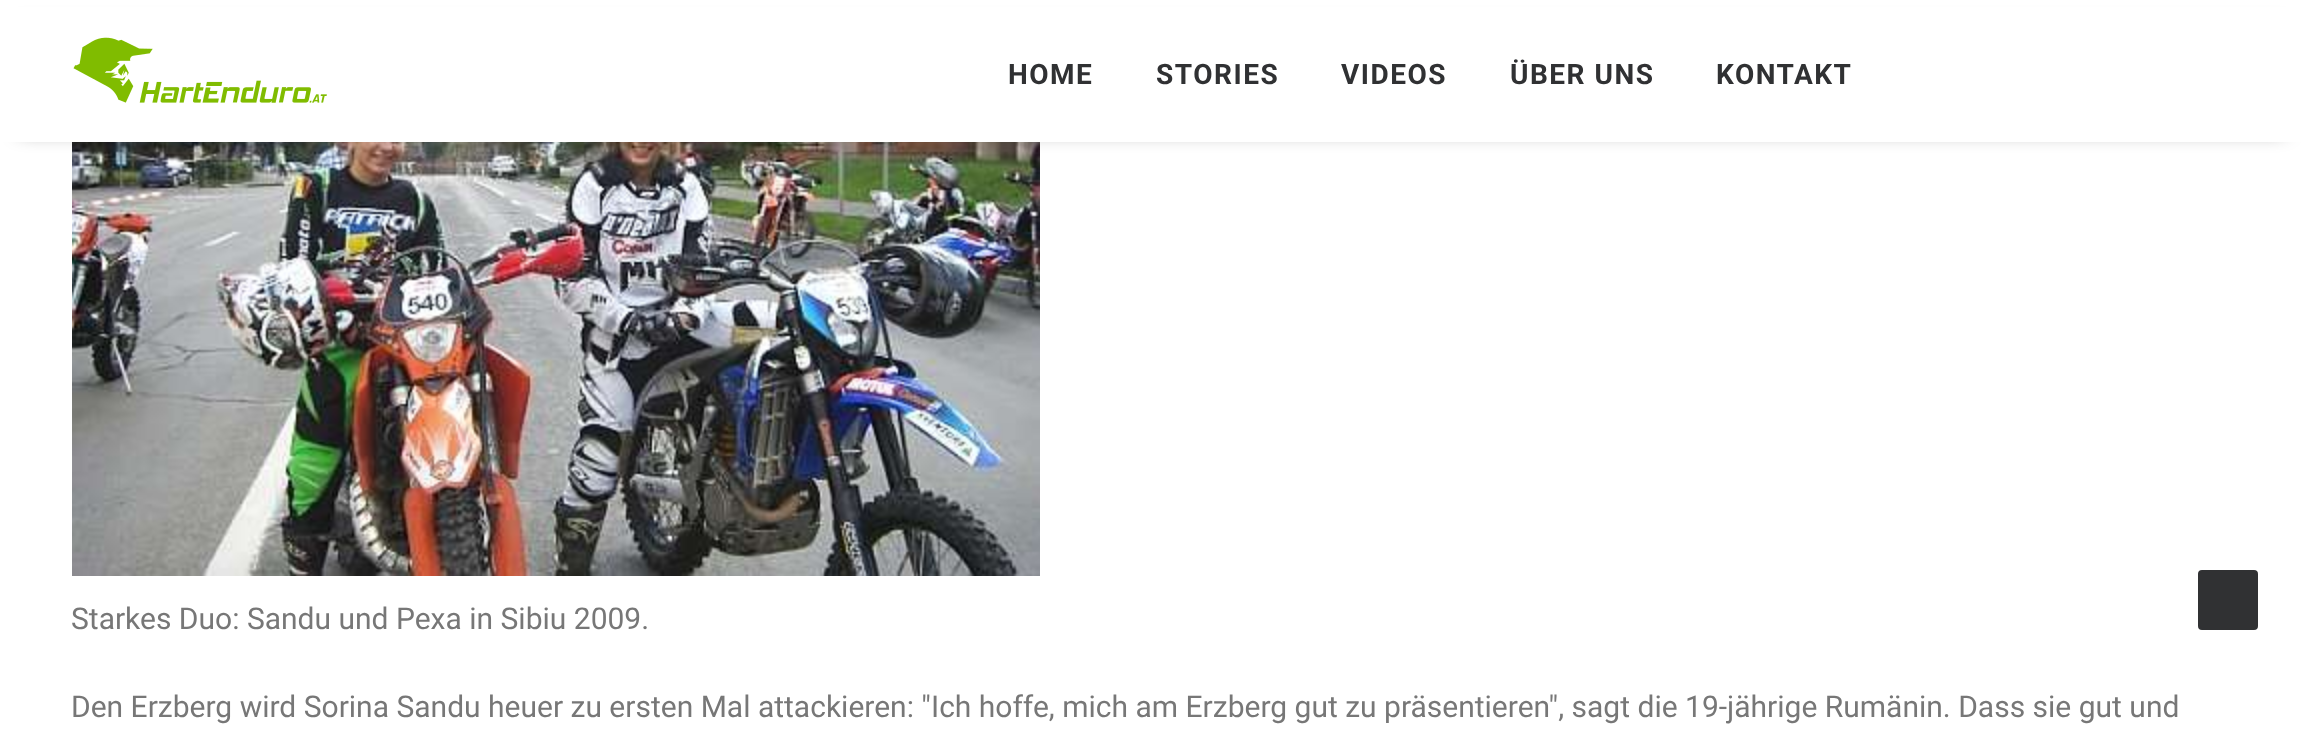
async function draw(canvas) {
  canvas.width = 2301
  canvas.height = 752
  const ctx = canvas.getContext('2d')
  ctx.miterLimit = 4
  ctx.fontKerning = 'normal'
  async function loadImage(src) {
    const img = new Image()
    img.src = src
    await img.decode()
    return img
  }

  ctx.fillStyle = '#fff'
  ctx.fillRect(0, 0, 2301, 752)
  ctx.drawImage(await loadImage('image1.png'), 72, 142, 968, 434)
  ctx.fillStyle = '#00000099'
  ctx.filter = 'blur(10px)'
  ctx.beginPath()
  ctx.rect(20, 28, 2264, 102)
  ctx.fill()
  ctx.filter = 'none'
  ctx.fillStyle = '#fff'
  ctx.fillRect(0, 7, 2301, 135)
  ctx.drawImage(await loadImage('image0.png'), 73, 37, 254, 66)
  ctx.letterSpacing = '1.5px'
  ctx.font = 'bold 28px Roboto'
  ctx.fillStyle = '#303133'
  ctx.fillText('HOME', 1008, 84)
  ctx.fillText('STORIES', 1156, 84)
  ctx.fillText('VIDEOS', 1341, 84)
  ctx.fillText('ÜBER UNS', 1510, 84)
  ctx.fillText('KONTAKT', 1716, 84)
  ctx.letterSpacing = '0px'
  ctx.font = '30px Roboto'
  ctx.fillStyle = '#777'
  ctx.fillText('Starkes Duo: Sandu und Pexa in Sibiu 2009.', 71, 629)
  ctx.fillText('Den Erzberg wird Sorina Sandu heuer zu ersten Mal attackieren: "Ich hoffe, mich am Erzberg gut zu präsentieren", sagt die 19-jährige Rumänin. Dass sie gut und', 71, 717)
  ctx.fillStyle = '#303133'
  ctx.beginPath()
  ctx.roundRect(2199, 571, 58, 58, 3)
  ctx.fill()
  ctx.strokeStyle = '#303133'
  ctx.lineWidth = 2
  ctx.stroke()
}

draw(document.querySelector('canvas'))
